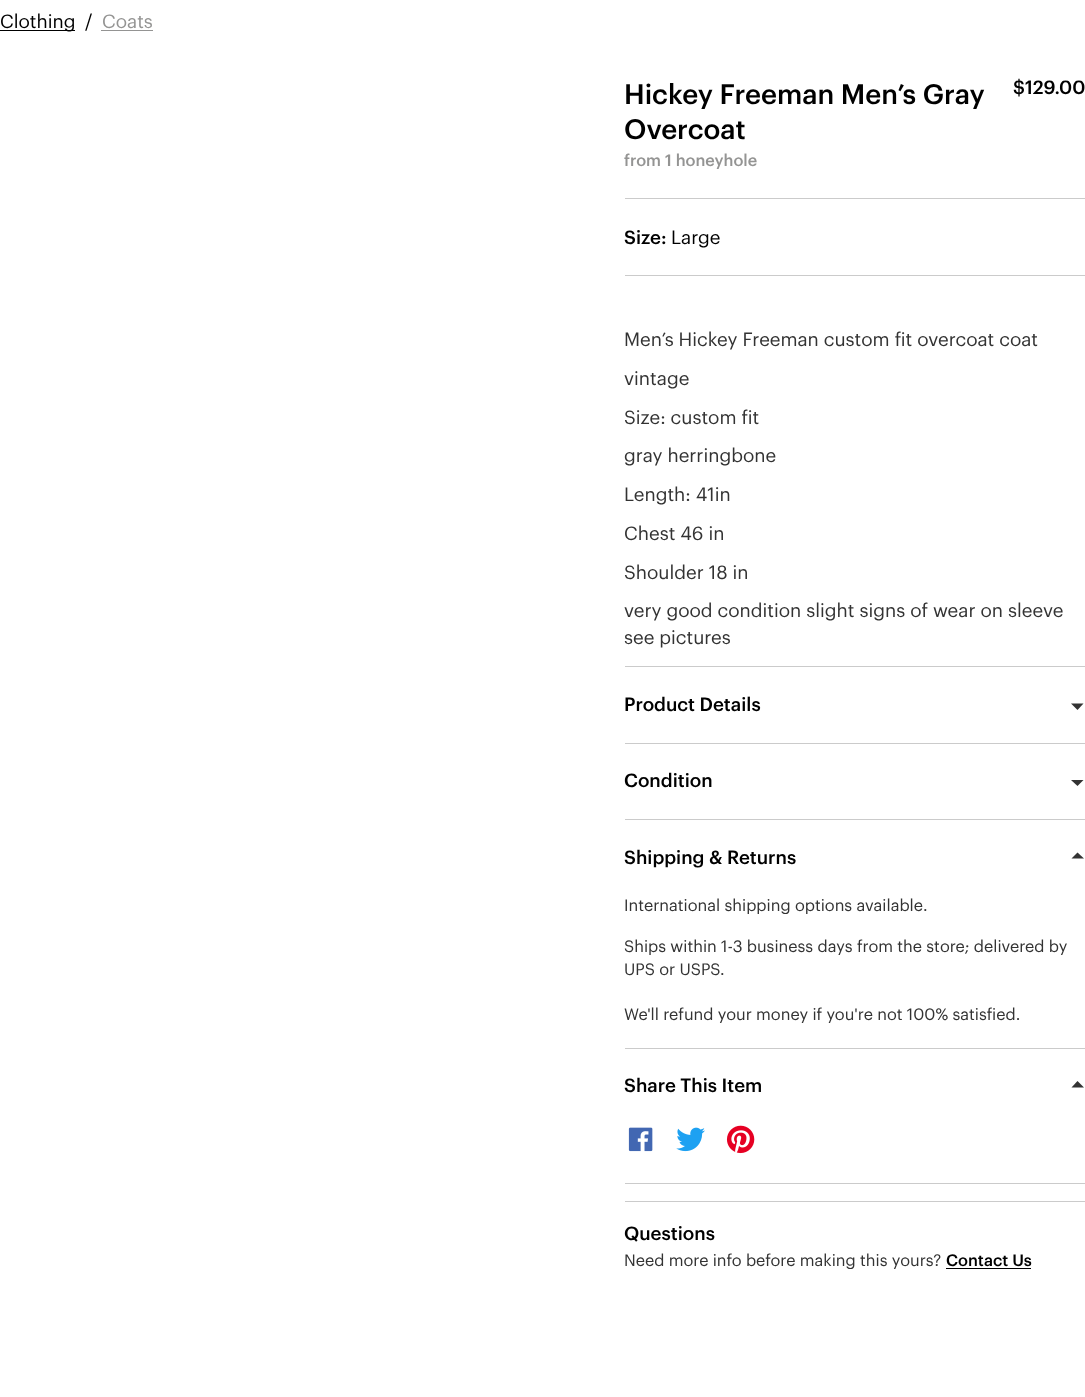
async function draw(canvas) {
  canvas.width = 1085
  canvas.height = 1397
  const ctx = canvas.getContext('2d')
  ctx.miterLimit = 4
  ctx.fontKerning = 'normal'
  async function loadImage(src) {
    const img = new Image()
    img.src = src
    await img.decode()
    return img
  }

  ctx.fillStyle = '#fff'
  ctx.fillRect(0, 0, 1085, 1397)
  ctx.fillStyle = '#000'
  ctx.fillRect(0, 30, 75, 1)
  ctx.font = '18.75px Graphik'
  ctx.fillText('Clothing', 0, 28)
  ctx.fillText('/', 85, 28)
  ctx.fillStyle = '#949493'
  ctx.fillText('Coats', 102, 28)
  ctx.fillRect(101, 30, 52, 1)
  ctx.font = '500 27.5px Graphik'
  ctx.fillStyle = '#000'
  ctx.fillText('Hickey Freeman Men’s Gray', 624, 104)
  ctx.fillText('Overcoat', 624, 139)
  ctx.font = '500 18.75px Graphik'
  ctx.fillText('$129.00', 1013, 94)
  ctx.font = '500 16.25px Graphik'
  ctx.fillStyle = '#949493'
  ctx.fillText('from 1 honeyhole', 624, 166)
  ctx.fillStyle = '#cbcbcb'
  ctx.fillRect(625, 198, 460, 1)
  ctx.fillRect(625, 275, 460, 1)
  ctx.font = '500 18.75px Graphik'
  ctx.fillStyle = '#000'
  ctx.fillText('Size:', 624, 244)
  ctx.font = '18.75px Graphik'
  ctx.fillText('Large', 671, 244)
  ctx.fillStyle = '#333'
  ctx.fillText('Men’s Hickey Freeman custom fit overcoat coat', 624, 346)
  ctx.fillText('vintage', 624, 385)
  ctx.fillText('Size: custom fit', 624, 424)
  ctx.fillText('gray herringbone', 624, 462)
  ctx.fillText('Length: 41in', 624, 501)
  ctx.fillText('Chest 46 in', 624, 540)
  ctx.fillText('Shoulder 18 in', 624, 579)
  ctx.fillText('very good condition slight signs of wear on sleeve', 624, 617)
  ctx.fillText('see pictures', 624, 644)
  ctx.fillStyle = '#cbcbcb'
  ctx.fillRect(625, 666, 460, 1)
  ctx.font = '500 18.75px Graphik'
  ctx.fillStyle = '#000'
  ctx.fillText('Product Details', 624, 711)
  ctx.fillStyle = '#333'
  ctx.beginPath()
  ctx.moveTo(1083.5, 703.5)
  ctx.lineTo(1077.5, 710)
  ctx.lineTo(1071, 703.5)
  ctx.closePath()
  ctx.fill('evenodd')
  ctx.fillStyle = '#cbcbcb'
  ctx.fillRect(625, 743, 460, 1)
  ctx.fillStyle = '#000'
  ctx.fillText('Condition', 624, 787)
  ctx.fillStyle = '#333'
  ctx.beginPath()
  ctx.moveTo(1083.5, 780)
  ctx.lineTo(1077.5, 786)
  ctx.lineTo(1071, 780)
  ctx.closePath()
  ctx.fill('evenodd')
  ctx.fillStyle = '#cbcbcb'
  ctx.fillRect(625, 819, 460, 1)
  ctx.fillStyle = '#000'
  ctx.fillText('Shipping & Returns', 624, 864)
  ctx.fillStyle = '#333'
  ctx.beginPath()
  ctx.moveTo(1071.5, 858.5)
  ctx.lineTo(1077.5, 852.5)
  ctx.lineTo(1084, 858.5)
  ctx.closePath()
  ctx.fill('evenodd')
  ctx.font = '16.25px Graphik'
  ctx.fillText('International shipping options available.', 624, 911)
  ctx.fillText('Ships within 1-3 business days from the store; delivered by', 624, 952)
  ctx.fillText('UPS or USPS.', 624, 975)
  ctx.fillText('We\'ll refund your money if you\'re not 100% satisfied.', 624, 1020)
  ctx.fillStyle = '#cbcbcb'
  ctx.fillRect(625, 1048, 460, 1)
  ctx.font = '500 18.75px Graphik'
  ctx.fillStyle = '#000'
  ctx.fillText('Share This Item', 624, 1092)
  ctx.fillStyle = '#333'
  ctx.beginPath()
  ctx.moveTo(1071.5, 1087.5)
  ctx.lineTo(1077.5, 1081)
  ctx.lineTo(1084, 1087.5)
  ctx.closePath()
  ctx.fill('evenodd')
  ctx.drawImage(await loadImage('image0.png'), 628, 1127, 25, 25)
  ctx.drawImage(await loadImage('image1.png'), 676, 1127, 29, 25)
  ctx.drawImage(await loadImage('image2.png'), 726, 1125, 29, 29)
  ctx.fillStyle = '#cbcbcb'
  ctx.fillRect(625, 1183, 460, 1)
  ctx.fillRect(625, 1201, 460, 1)
  ctx.fillStyle = '#000'
  ctx.fillText('Questions', 624, 1240)
  ctx.font = '16.25px Graphik'
  ctx.fillStyle = '#333'
  ctx.fillText('Need more info before making this yours?', 624, 1266)
  ctx.font = '500 16.25px Graphik'
  ctx.fillStyle = '#000'
  ctx.fillText('Contact Us', 946, 1266)
  ctx.fillRect(946, 1268, 85, 1)
}

draw(document.querySelector('canvas'))
